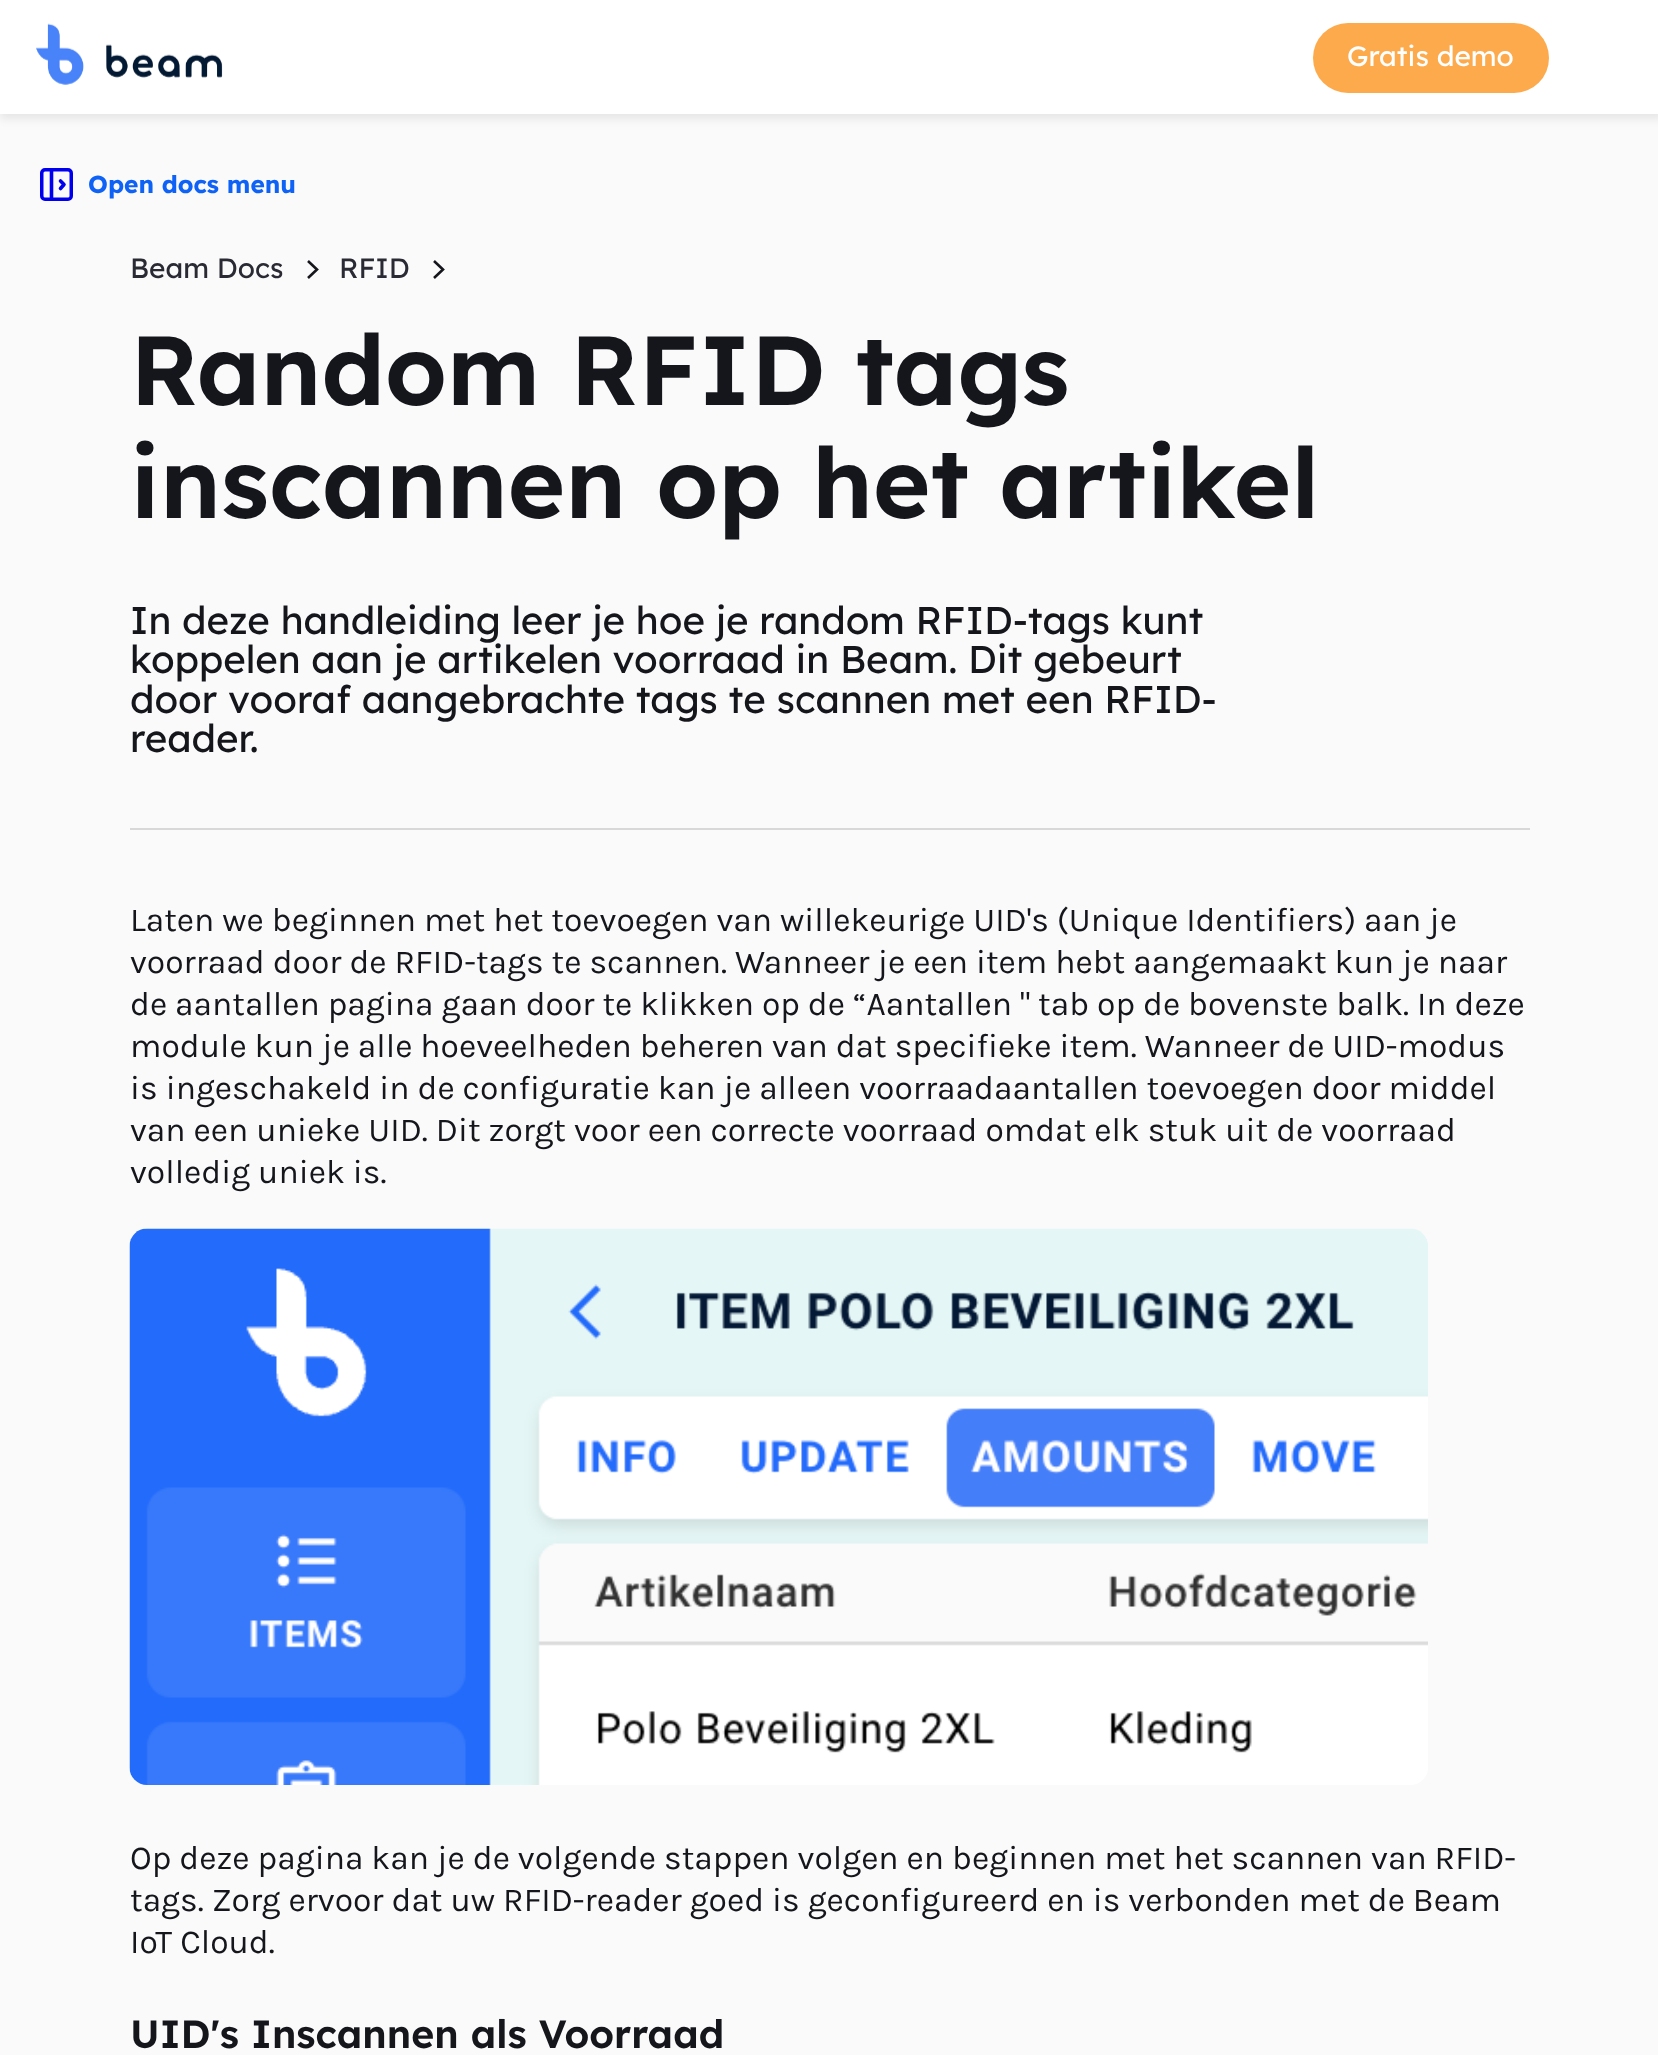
async function draw(canvas) {
  canvas.width = 1658
  canvas.height = 2055
  const ctx = canvas.getContext('2d')
  ctx.miterLimit = 4
  ctx.fontKerning = 'normal'
  async function loadImage(src) {
    const img = new Image()
    img.src = src
    await img.decode()
    return img
  }

  ctx.fillStyle = '#fafafa'
  ctx.fillRect(0, 0, 1658, 2055)
  ctx.fillStyle = '#00000014'
  ctx.filter = 'blur(4.5px)'
  ctx.beginPath()
  ctx.rect(0, 2, 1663, 117)
  ctx.fill()
  ctx.filter = 'none'
  ctx.fillStyle = '#fff'
  ctx.fillRect(0, 0, 1658, 114)
  ctx.drawImage(await loadImage('image0.png'), 36, 23, 187, 62)
  ctx.fillStyle = '#fdaa4c'
  ctx.beginPath()
  ctx.roundRect(1313, 23, 236, 70, 35)
  ctx.fill()
  ctx.font = '28px Lexend Deca'
  ctx.fillStyle = '#fff'
  ctx.fillText('Gratis demo', 1347, 66)
  ctx.beginPath()
  ctx.roundRect(41.75, 169.75, 29.5, 29.5, 3.25)
  ctx.strokeStyle = '#00e'
  ctx.lineWidth = 3.5
  ctx.stroke()
  ctx.beginPath()
  ctx.moveTo(51.5, 170)
  ctx.lineTo(51.5, 199)
  ctx.moveTo(60.5, 181)
  ctx.lineTo(64, 184.5)
  ctx.lineTo(60.5, 188.5)
  ctx.lineWidth = 3.6
  ctx.lineCap = 'round'
  ctx.lineJoin = 'round'
  ctx.stroke()
  ctx.font = 'bold 24.5px Lexend Deca'
  ctx.fillStyle = '#0f62f6'
  ctx.fillText('Open docs menu', 88, 193)
  ctx.fillStyle = '#d8d8d8'
  ctx.fillRect(130, 828, 1400, 2)
  ctx.font = '28px Lexend Deca'
  ctx.fillStyle = '#292a33'
  ctx.fillText('Beam Docs', 130, 278)
  ctx.beginPath()
  ctx.moveTo(308, 261)
  ctx.lineTo(317, 269.5)
  ctx.lineTo(308, 278)
  ctx.strokeStyle = '#15161b'
  ctx.lineWidth = 2.6
  ctx.lineCap = 'butt'
  ctx.lineJoin = 'miter'
  ctx.stroke()
  ctx.fillText('RFID', 339, 278)
  ctx.beginPath()
  ctx.moveTo(434, 261)
  ctx.lineTo(443, 269.5)
  ctx.lineTo(434, 278)
  ctx.stroke()
  ctx.font = '600 98px Lexend Deca'
  ctx.fillStyle = '#15161b'
  ctx.fillText('Random RFID tags', 130, 405)
  ctx.fillText('inscannen op het artikel', 130, 518)
  ctx.font = '38.5px Lexend Deca'
  ctx.fillText('In deze handleiding leer je hoe je random RFID-tags kunt', 130, 634)
  ctx.fillText('koppelen aan je artikelen voorraad in Beam. Dit gebeurt', 130, 673)
  ctx.fillText('door vooraf aangebrachte tags te scannen met een RFID-', 130, 713)
  ctx.fillText('reader.', 130, 752)
  ctx.font = '33.6px Karla'
  ctx.fillText('Laten we beginnen met het toevoegen van willekeurige UID\'s (Unique Identifiers) aan je', 130, 931)
  ctx.fillText('voorraad door de RFID-tags te scannen. Wanneer je een item hebt aangemaakt kun je naar', 130, 973)
  ctx.fillText('de aantallen pagina gaan door te klikken op de “Aantallen " tab op de bovenste balk. In deze', 130, 1015)
  ctx.fillText('module kun je alle hoeveelheden beheren van dat specifieke item. Wanneer de UID-modus', 130, 1057)
  ctx.fillText('is ingeschakeld in de configuratie kan je alleen voorraadaantallen toevoegen door middel', 130, 1099)
  ctx.fillText('van een unieke UID. Dit zorgt voor een correcte voorraad omdat elk stuk uit de voorraad', 130, 1141)
  ctx.fillText('volledig uniek is.', 130, 1183)
  ctx.drawImage(await loadImage('image1.png'), 129, 1228, 1299, 557)
  ctx.fillText('Op deze pagina kan je de volgende stappen volgen en beginnen met het scannen van RFID-', 130, 1869)
  ctx.fillText('tags. Zorg ervoor dat uw RFID-reader goed is geconfigureerd en is verbonden met de Beam', 130, 1911)
  ctx.fillText('IoT Cloud.', 130, 1953)
  ctx.font = '600 39.25px Lexend Deca'
  ctx.fillText('UID\'s Inscannen als Voorraad', 130, 2048)
}

draw(document.querySelector('canvas'))
